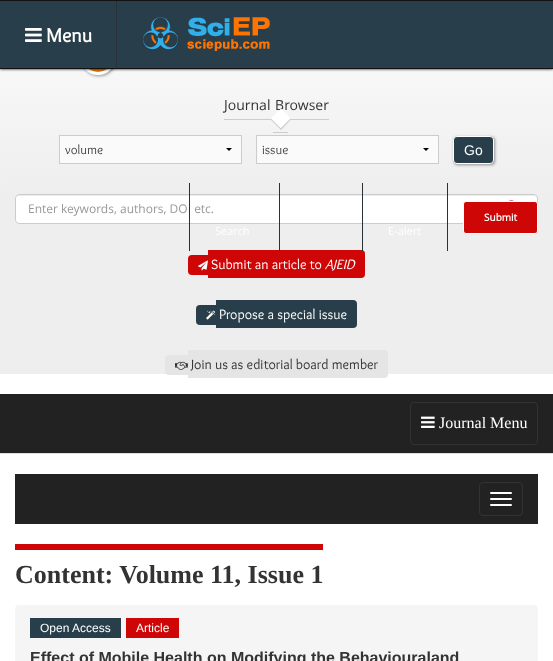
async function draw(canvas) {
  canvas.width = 553
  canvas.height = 661
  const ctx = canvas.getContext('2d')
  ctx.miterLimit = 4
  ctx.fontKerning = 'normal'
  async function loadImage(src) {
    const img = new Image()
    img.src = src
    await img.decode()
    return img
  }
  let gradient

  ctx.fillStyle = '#fff'
  ctx.fillRect(0, 0, 553, 661)
  gradient = ctx.createLinearGradient(276, -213, 277, 374)
  gradient.addColorStop(0, '#fff')
  gradient.addColorStop(0.3, '#fff')
  gradient.addColorStop(0.7, '#eee')
  gradient.addColorStop(1, '#eee')
  ctx.fillStyle = gradient
  ctx.fillRect(0, 69, 553, 305)
  ctx.fillStyle = '#00000066'
  ctx.filter = 'blur(1.5px)'
  ctx.beginPath()
  ctx.roundRect(81, 40, 36, 36, 18)
  ctx.fill()
  ctx.filter = 'none'
  ctx.fillStyle = '#ed7b00'
  ctx.beginPath()
  ctx.arc(98, 57, 16.5, 0, 2 * Math.PI)
  ctx.fill()
  ctx.strokeStyle = '#fff'
  ctx.lineWidth = 3
  ctx.stroke()
  ctx.fillStyle = '#000'
  ctx.filter = 'blur(1.5px)'
  ctx.beginPath()
  ctx.rect(0, 1, 553, 68)
  ctx.fill()
  ctx.filter = 'none'
  ctx.fillStyle = '#283e4a'
  ctx.fillRect(0, 1, 553, 67)
  ctx.fillStyle = '#273137'
  ctx.fillRect(116, 0, 1, 67)
  ctx.fillStyle = '#121212'
  ctx.fillRect(0, 0, 553, 1)
  ctx.drawImage(await loadImage('image0.png'), 25, 28, 17, 14)
  ctx.font = 'bold 20px Overlock'
  ctx.fillStyle = '#fff'
  ctx.fillText('Menu', 46, 42)
  ctx.drawImage(await loadImage('image1.png'), 143, 17, 127, 34)
  ctx.fillStyle = '#121212'
  ctx.fillRect(0, 68, 553, 1)
  ctx.fillStyle = '#fff'
  ctx.beginPath()
  ctx.roundRect(15, 194, 523, 30, 4)
  ctx.fill()
  ctx.fillStyle = '#ececec'
  ctx.beginPath()
  ctx.moveTo(19, 196)
  ctx.bezierCurveTo(17, 196, 16, 197, 16, 199)
  ctx.bezierCurveTo(16, 197, 17, 195, 19, 195)
  ctx.lineTo(535, 195)
  ctx.lineTo(537, 197)
  ctx.lineTo(537, 199)
  ctx.bezierCurveTo(537, 197, 536, 196, 534, 196)
  ctx.closePath()
  ctx.fill()
  ctx.beginPath()
  ctx.roundRect(15.5, 194.5, 522, 29, 3.5)
  ctx.strokeStyle = '#ccc'
  ctx.lineWidth = 1
  ctx.stroke()
  ctx.fillStyle = '#cf0606'
  ctx.beginPath()
  ctx.roundRect(463.5, 201.5, 74, 32, 2.5)
  ctx.fill()
  ctx.strokeStyle = '#fff'
  ctx.stroke()
  ctx.font = 'bold 10px Open Sans'
  ctx.fillStyle = '#fff'
  ctx.fillText('Submit', 484, 221)
  ctx.font = '12px Open Sans'
  ctx.fillStyle = '#999'
  ctx.fillText('Enter keywords, authors, DOI etc.', 28, 213)
  ctx.fillStyle = '#273137'
  ctx.fillRect(189, 183, 1, 68)
  ctx.font = '11px Open Sans'
  ctx.fillStyle = '#fff'
  ctx.fillText('Search', 215, 235)
  ctx.fillStyle = '#cf0606'
  ctx.fillRect(208, 250, 117, 28)
  ctx.fillStyle = '#273137'
  ctx.fillRect(279, 183, 1, 68)
  ctx.fillRect(447, 183, 1, 68)
  ctx.fillStyle = '#cf0606'
  ctx.beginPath()
  ctx.roundRect(325, 250, 40, 28, [0, 4, 4, 0])
  ctx.fill()
  ctx.fillStyle = '#273137'
  ctx.fillRect(362, 183, 1, 68)
  ctx.fillStyle = '#fff'
  ctx.fillText('E-alert', 388, 235)
  ctx.fillStyle = '#ccc'
  ctx.fillRect(224, 119, 105, 1)
  ctx.fillRect(273, 132, 15, 1)
  ctx.wordSpacing = '1px'
  ctx.font = '14px Open Sans'
  ctx.fillStyle = '#333'
  ctx.fillText('Journal Browser', 224, 110)
  ctx.fillStyle = '#fff'
  ctx.beginPath()
  ctx.moveTo(281, 108.5)
  ctx.lineTo(291.5, 119)
  ctx.lineTo(281, 130)
  ctx.lineTo(270, 119)
  ctx.closePath()
  ctx.fill()
  ctx.fillStyle = '#ccc'
  ctx.beginPath()
  ctx.moveTo(290.5, 118.5)
  ctx.lineTo(291.5, 119)
  ctx.lineTo(281, 130)
  ctx.lineTo(280, 129)
  ctx.closePath()
  ctx.fill()
  ctx.beginPath()
  ctx.moveTo(271, 118.5)
  ctx.lineTo(281.5, 129)
  ctx.lineTo(281, 130)
  ctx.lineTo(270, 119)
  ctx.closePath()
  ctx.fill()
  ctx.fillStyle = '#fafafa'
  ctx.fillRect(60, 136, 181, 27)
  ctx.fillStyle = '#000'
  ctx.beginPath()
  ctx.moveTo(232, 148)
  ctx.lineTo(229, 151)
  ctx.lineTo(226, 148)
  ctx.closePath()
  ctx.fill()
  ctx.strokeStyle = '#ccc'
  ctx.strokeRect(59.5, 135.5, 182, 28)
  ctx.wordSpacing = '0px'
  ctx.font = '13px Overlock'
  ctx.fillStyle = '#3f3f3f'
  ctx.fillText('volume', 65, 154)
  ctx.fillStyle = '#fafafa'
  ctx.fillRect(257, 136, 181, 27)
  ctx.fillStyle = '#000'
  ctx.beginPath()
  ctx.moveTo(429, 148)
  ctx.lineTo(426, 151)
  ctx.lineTo(423, 148)
  ctx.closePath()
  ctx.fill()
  ctx.strokeRect(256.5, 135.5, 182, 28)
  ctx.fillStyle = '#3f3f3f'
  ctx.fillText('issue', 262, 154)
  ctx.fillStyle = '#00000066'
  ctx.filter = 'blur(1.5px)'
  ctx.beginPath()
  ctx.roundRect(454, 137, 41, 28, 4)
  ctx.fill()
  ctx.filter = 'none'
  ctx.fillStyle = '#283e4a'
  ctx.beginPath()
  ctx.roundRect(453.5, 136.5, 40, 27, 3.5)
  ctx.fill()
  ctx.strokeStyle = '#fff'
  ctx.stroke()
  ctx.font = '14px Liberation Sans'
  ctx.fillStyle = '#fff'
  ctx.fillText('Go', 464, 155)
  ctx.drawImage(await loadImage('image2.png'), 509, 200, 5, 1)
  ctx.fillStyle = '#cf0606'
  ctx.beginPath()
  ctx.roundRect(188, 255, 20, 20, [4, 0, 0, 4])
  ctx.fill()
  ctx.drawImage(await loadImage('image3.png'), 198, 260, 10, 11)
  ctx.font = '14px Overlock'
  ctx.fillStyle = '#fff'
  ctx.fillText('Submit an article to', 211, 269)
  ctx.font = 'italic 14px Overlock'
  ctx.fillText('AJEID', 325, 269)
  ctx.fillStyle = '#283e4a'
  ctx.beginPath()
  ctx.roundRect(196, 305, 20, 20, [4, 0, 0, 4])
  ctx.fill()
  ctx.beginPath()
  ctx.roundRect(216, 300, 141, 28, [0, 4, 4, 0])
  ctx.fill()
  ctx.drawImage(await loadImage('image4.png'), 206, 310, 10, 10)
  ctx.font = '14px Overlock'
  ctx.fillStyle = '#fff'
  ctx.fillText('Propose a special issue', 219, 319)
  ctx.fillStyle = '#e5e5e5'
  ctx.beginPath()
  ctx.roundRect(165, 355, 23, 20, [4, 0, 0, 4])
  ctx.fill()
  ctx.beginPath()
  ctx.roundRect(188, 350, 200, 28, [0, 4, 4, 0])
  ctx.fill()
  ctx.drawImage(await loadImage('image5.png'), 175, 361, 13, 9)
  ctx.fillStyle = '#333'
  ctx.fillText('Join us as editorial board member', 191, 369)
  ctx.fillStyle = '#ddd'
  ctx.fillRect(0, 453, 553, 1)
  ctx.fillStyle = '#222'
  ctx.fillRect(0, 394, 553, 59)
  ctx.beginPath()
  ctx.roundRect(410.5, 402.5, 127, 42, 3.5)
  ctx.strokeStyle = '#333'
  ctx.stroke()
  ctx.drawImage(await loadImage('image6.png'), 421, 416, 14, 12)
  ctx.font = '16px Liberation Serif'
  ctx.fillStyle = '#fff'
  ctx.fillText('Journal Menu', 439, 428)
  ctx.fillStyle = '#222'
  ctx.fillRect(15, 474, 523, 50)
  ctx.beginPath()
  ctx.roundRect(479.5, 482.5, 43, 33, 3.5)
  ctx.stroke()
  ctx.fillStyle = '#fff'
  ctx.beginPath()
  ctx.roundRect(490, 492, 22, 2, 1)
  ctx.fill()
  ctx.beginPath()
  ctx.roundRect(490, 498, 22, 2, 1)
  ctx.fill()
  ctx.beginPath()
  ctx.roundRect(490, 504, 22, 2, 1)
  ctx.fill()
  ctx.font = 'bold 26px Liberation Serif'
  ctx.fillStyle = '#333'
  ctx.fillText('Content: Volume 11, Issue 1', 15, 583)
  ctx.fillStyle = '#cf0606'
  ctx.fillRect(15, 544, 308, 6)
  ctx.fillStyle = '#f5f5f5'
  ctx.beginPath()
  ctx.roundRect(15, 605, 523, 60, 4)
  ctx.fill()
  ctx.fillStyle = '#283e4a'
  ctx.fillRect(30, 618, 91, 20)
  ctx.font = '12px Liberation Sans'
  ctx.fillStyle = '#fff'
  ctx.fillText('Open Access', 40, 632)
  ctx.fillStyle = '#cf0606'
  ctx.fillRect(126, 618, 53, 20)
  ctx.fillStyle = '#fff'
  ctx.fillText('Article', 136, 632)
  ctx.font = 'bold 16px Liberation Sans'
  ctx.fillStyle = '#333'
  ctx.fillText('Effect of Mobile Health on Modifying the Behaviouraland', 30, 663)
}

draw(document.querySelector('canvas'))
